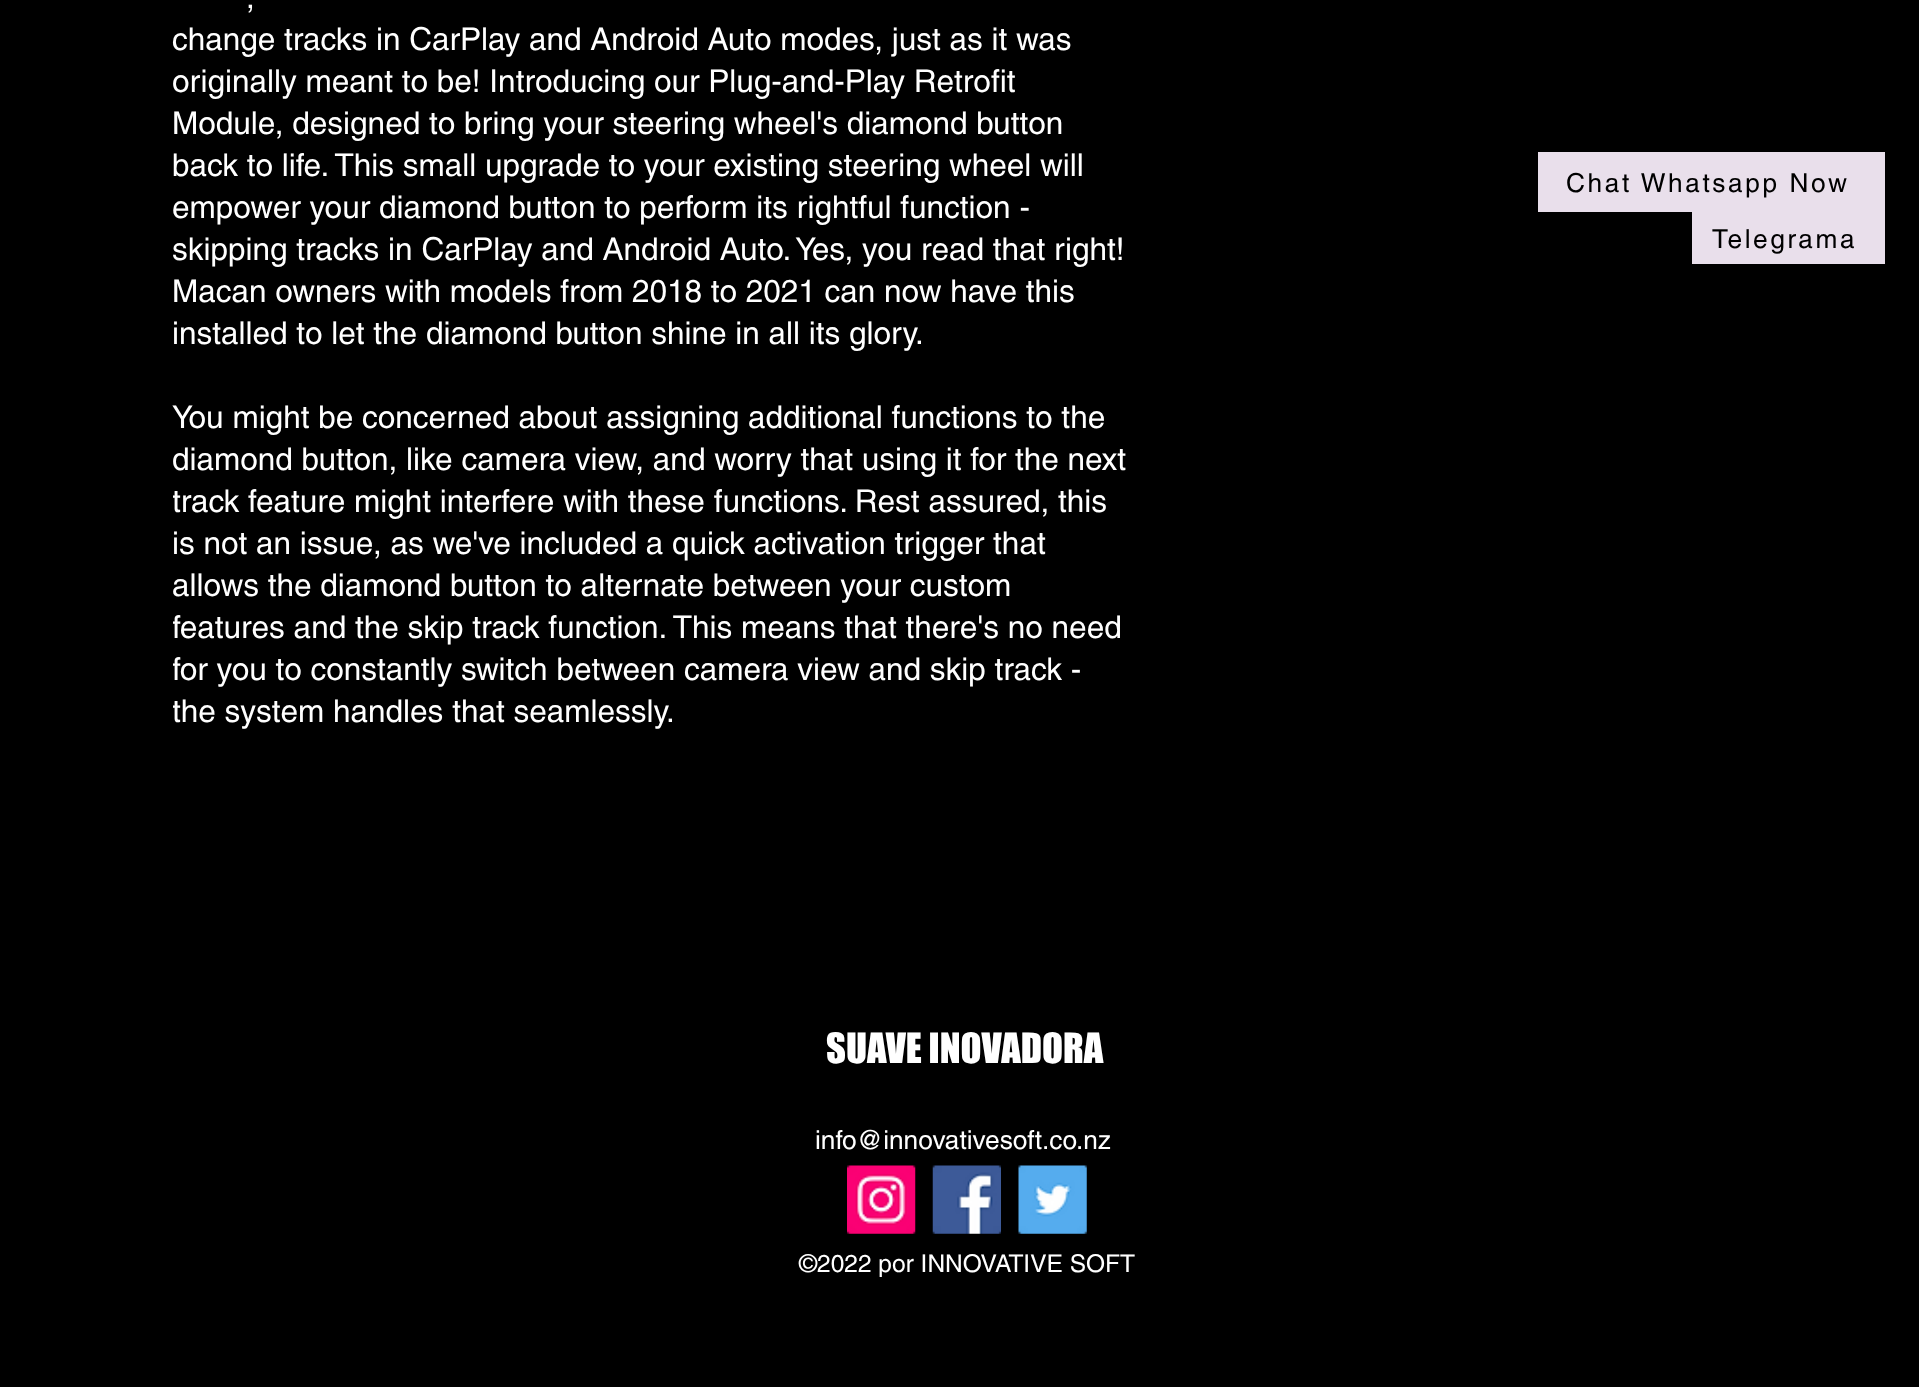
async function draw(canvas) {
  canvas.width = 1919
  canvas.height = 1387
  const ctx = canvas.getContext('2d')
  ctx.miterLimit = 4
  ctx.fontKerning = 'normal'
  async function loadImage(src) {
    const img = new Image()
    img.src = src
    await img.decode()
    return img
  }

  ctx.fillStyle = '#000'
  ctx.fillRect(0, 0, 1919, 1387)
  ctx.font = '31.5px helvetica'
  ctx.fillStyle = '#fff'
  ctx.fillText(',', 246, 8)
  ctx.fillText('change tracks in CarPlay and Android Auto modes, just as it was', 172, 50)
  ctx.fillText('originally meant to be! Introducing our Plug-and-Play Retrofit', 172, 92)
  ctx.fillText('Module, designed to bring your steering wheel\'s diamond button', 172, 134)
  ctx.fillText('back to life. This small upgrade to your existing steering wheel will', 172, 176)
  ctx.fillText('empower your diamond button to perform its rightful function -', 172, 218)
  ctx.fillText('skipping tracks in CarPlay and Android Auto. Yes, you read that right!', 172, 260)
  ctx.fillText('Macan owners with models from 2018 to 2021 can now have this', 172, 302)
  ctx.fillText('installed to let the diamond button shine in all its glory.', 172, 344)
  ctx.fillText('You might be concerned about assigning additional functions to the', 172, 428)
  ctx.fillText('diamond button, like camera view, and worry that using it for the next', 172, 470)
  ctx.save()
  ctx.beginPath()
  ctx.rect(173, 0, 956, 733)
  ctx.clip()
  ctx.fillText('track feature might interfere with these functions. Rest assured, this', 172, 512)
  ctx.restore()
  ctx.fillText('is not an issue, as we\'ve included a quick activation trigger that', 172, 554)
  ctx.fillText('allows the diamond button to alternate between your custom', 172, 596)
  ctx.save()
  ctx.beginPath()
  ctx.rect(173, 0, 956, 733)
  ctx.clip()
  ctx.fillText('features and the skip track function. This means that there\'s no need', 172, 638)
  ctx.fillText('for you to constantly switch between camera view and skip track -', 172, 680)
  ctx.fillText('the system handles that seamlessly.', 172, 722)
  ctx.restore()
  ctx.fillStyle = '#e9dfeb'
  ctx.fillRect(1538, 152, 347, 60)
  ctx.letterSpacing = '2.6px'
  ctx.font = '26.25px helvetica'
  ctx.fillStyle = '#000'
  ctx.fillText('Chat Whatsapp Now', 1566, 192)
  ctx.fillStyle = '#e9dfeb'
  ctx.fillRect(1692, 212, 193, 52)
  ctx.fillStyle = '#000'
  ctx.fillText('Telegrama', 1712, 248)
  ctx.letterSpacing = '0px'
  ctx.font = '38.5px "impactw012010"'
  ctx.fillStyle = '#fff'
  ctx.fillText('SUAVE INOVADORA', 826, 1063)
  ctx.font = '26.25px helvetica'
  ctx.fillText('info@innovativesoft.co.nz', 815, 1149)
  ctx.drawImage(await loadImage('image0.png'), 847, 1165, 69, 69)
  ctx.drawImage(await loadImage('image1.png'), 932, 1165, 69, 69)
  ctx.drawImage(await loadImage('image2.png'), 1018, 1165, 69, 69)
  ctx.font = '24.5px helvetica'
  ctx.fillText('©2022 por INNOVATIVE SOFT', 799, 1272)
}

draw(document.querySelector('canvas'))
